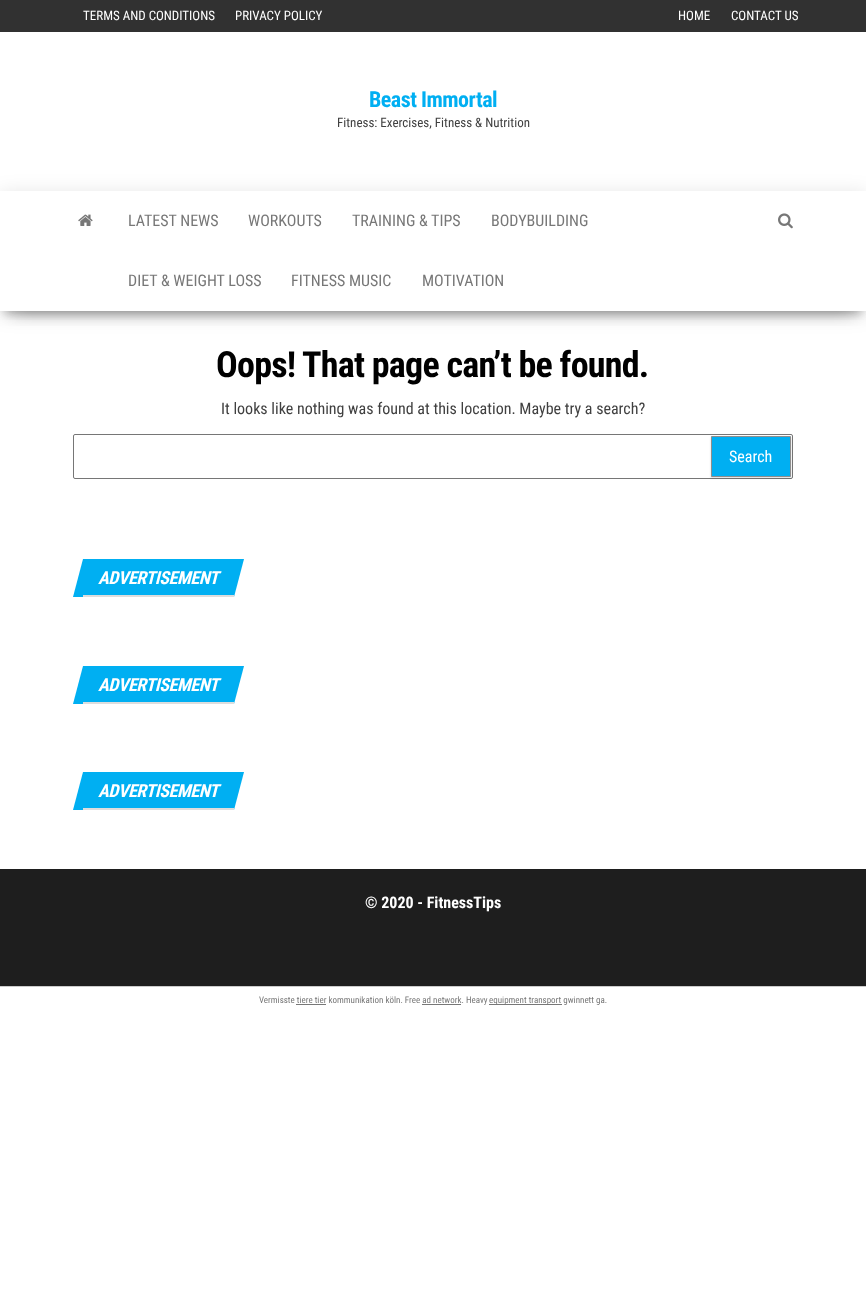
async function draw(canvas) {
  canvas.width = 866
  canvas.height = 1309
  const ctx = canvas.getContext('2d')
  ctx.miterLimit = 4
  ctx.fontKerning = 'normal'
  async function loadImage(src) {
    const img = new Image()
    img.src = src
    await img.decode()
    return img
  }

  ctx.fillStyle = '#fff'
  ctx.fillRect(0, 0, 866, 1309)
  ctx.fillStyle = '#313131'
  ctx.fillRect(0, 0, 866, 32)
  ctx.font = '13px Roboto Condensed'
  ctx.fillStyle = '#fff'
  ctx.fillText('TERMS AND CONDITIONS', 83, 20)
  ctx.fillText('PRIVACY POLICY', 235, 20)
  ctx.fillText('HOME', 678, 20)
  ctx.fillText('CONTACT US', 731, 20)
  ctx.letterSpacing = '-0.5px'
  ctx.font = 'bold 22px Roboto Condensed'
  ctx.fillStyle = '#00aff2'
  ctx.fillText('Beast Immortal', 369, 107)
  ctx.letterSpacing = '0px'
  ctx.font = '13px Roboto Condensed'
  ctx.fillStyle = '#404040'
  ctx.fillText('Fitness: Exercises, Fitness & Nutrition', 337, 127)
  ctx.save()
  ctx.beginPath()
  ctx.rect(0, 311, 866, 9)
  ctx.clip()
  ctx.fillStyle = '#00000033'
  ctx.filter = 'blur(5px)'
  ctx.beginPath()
  ctx.rect(5, 204, 856, 110)
  ctx.fill()
  ctx.filter = 'none'
  ctx.restore()
  ctx.save()
  ctx.beginPath()
  ctx.moveTo(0, 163)
  ctx.lineTo(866, 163)
  ctx.lineTo(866, 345)
  ctx.lineTo(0, 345)
  ctx.closePath()
  ctx.moveTo(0, 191)
  ctx.lineTo(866, 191)
  ctx.lineTo(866, 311)
  ctx.lineTo(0, 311)
  ctx.closePath()
  ctx.clip('evenodd')
  ctx.fillStyle = '#0000001f'
  ctx.filter = 'blur(10px)'
  ctx.beginPath()
  ctx.rect(0, 194, 866, 120)
  ctx.fill()
  ctx.filter = 'none'
  ctx.restore()
  ctx.save()
  ctx.beginPath()
  ctx.rect(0, 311, 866, 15)
  ctx.clip()
  ctx.fillStyle = '#0000006b'
  ctx.filter = 'blur(10px)'
  ctx.beginPath()
  ctx.rect(12, 213, 842, 96)
  ctx.fill()
  ctx.filter = 'none'
  ctx.restore()
  ctx.drawImage(await loadImage('image0.png'), 78, 214, 15, 12)
  ctx.font = '16px Roboto Condensed'
  ctx.fillStyle = '#777'
  ctx.fillText('LATEST NEWS', 128, 226)
  ctx.fillText('WORKOUTS', 248, 226)
  ctx.fillText('TRAINING & TIPS', 352, 226)
  ctx.fillText('BODYBUILDING', 491, 226)
  ctx.fillText('DIET & WEIGHT LOSS', 128, 286)
  ctx.fillText('FITNESS MUSIC', 291, 286)
  ctx.fillText('MOTIVATION', 422, 286)
  ctx.drawImage(await loadImage('image1.png'), 778, 213, 15, 16)
  ctx.letterSpacing = '-0.75px'
  ctx.font = 'bold 36px Roboto Condensed'
  ctx.fillStyle = '#000'
  ctx.fillText('Oops! That page can’t be found.', 216, 377)
  ctx.letterSpacing = '0px'
  ctx.font = '16px Roboto Condensed'
  ctx.fillStyle = '#404040'
  ctx.fillText('It looks like nothing was found at this location. Maybe try a search?', 221, 414)
  ctx.beginPath()
  ctx.roundRect(73.5, 434.5, 719, 44, 1.5)
  ctx.strokeStyle = '#767676'
  ctx.stroke()
  ctx.fillStyle = '#00000026'
  ctx.filter = 'blur(1px)'
  ctx.beginPath()
  ctx.rect(711, 437, 80, 41)
  ctx.fill()
  ctx.filter = 'none'
  ctx.fillStyle = '#00aff2'
  ctx.beginPath()
  ctx.rect(711.5, 436.5, 79, 40)
  ctx.fill()
  ctx.strokeStyle = '#8e8e8e'
  ctx.stroke()
  ctx.fillStyle = '#fff'
  ctx.fillText('Search', 729, 462)
  ctx.fillStyle = '#00aff2'
  ctx.beginPath()
  ctx.moveTo(83, 559)
  ctx.lineTo(244, 559)
  ctx.lineTo(234, 597)
  ctx.lineTo(73, 597)
  ctx.closePath()
  ctx.fill()
  ctx.letterSpacing = '-0.4px'
  ctx.font = 'italic bold 18px Roboto Condensed'
  ctx.fillStyle = '#fff'
  ctx.fillText('ADVERTISEMENT', 98, 584)
  ctx.fillStyle = '#ddd'
  ctx.fillRect(83, 595, 151, 2)
  ctx.fillStyle = '#00aff2'
  ctx.beginPath()
  ctx.moveTo(83, 666)
  ctx.lineTo(244, 666)
  ctx.lineTo(234, 704)
  ctx.lineTo(73, 704)
  ctx.closePath()
  ctx.fill()
  ctx.fillStyle = '#fff'
  ctx.fillText('ADVERTISEMENT', 98, 691)
  ctx.fillStyle = '#ddd'
  ctx.fillRect(83, 702, 151, 2)
  ctx.fillStyle = '#00aff2'
  ctx.beginPath()
  ctx.moveTo(83, 772)
  ctx.lineTo(244, 772)
  ctx.lineTo(234, 810)
  ctx.lineTo(73, 810)
  ctx.closePath()
  ctx.fill()
  ctx.fillStyle = '#fff'
  ctx.fillText('ADVERTISEMENT', 98, 797)
  ctx.fillStyle = '#ddd'
  ctx.fillRect(83, 808, 151, 2)
  ctx.fillStyle = '#1e1e1e'
  ctx.fillRect(0, 869, 866, 117)
  ctx.letterSpacing = '0px'
  ctx.font = 'bold 16px Roboto Condensed'
  ctx.fillStyle = '#fff'
  ctx.fillText('© 2020 - FitnessTips', 365, 908)
  ctx.fillStyle = '#ccc'
  ctx.fillRect(0, 986, 866, 1)
  ctx.font = '9px Roboto Condensed'
  ctx.fillStyle = '#777'
  ctx.fillText('Vermisste tiere tier kommunikation köln. Free ad network. Heavy', 259, 1003)
  ctx.fillRect(489, 1004, 73, 1)
  ctx.fillText('equipment transport gwinnett ga.', 489, 1003)
  ctx.fillRect(296, 1004, 30, 1)
  ctx.fillRect(422, 1004, 39, 1)
}

draw(document.querySelector('canvas'))
